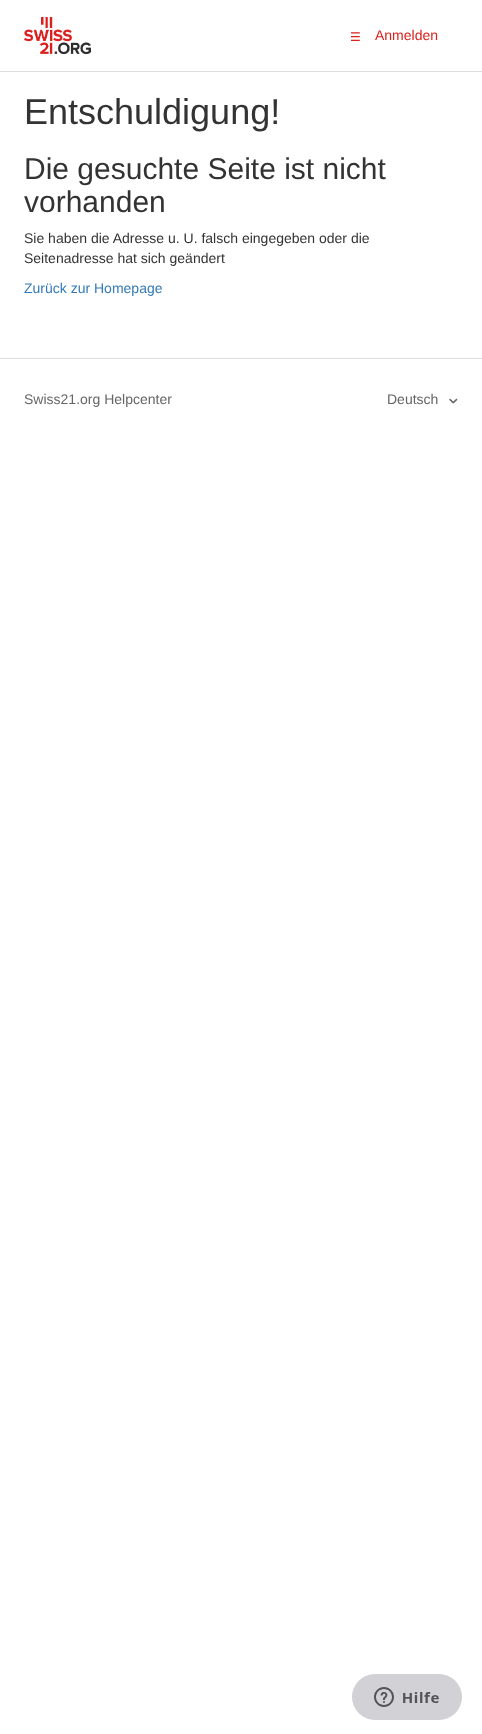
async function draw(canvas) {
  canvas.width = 482
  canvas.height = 1734
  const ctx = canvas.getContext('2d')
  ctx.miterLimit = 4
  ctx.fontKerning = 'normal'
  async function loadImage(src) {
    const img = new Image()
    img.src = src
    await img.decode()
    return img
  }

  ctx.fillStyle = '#fff'
  ctx.fillRect(0, 0, 482, 1734)
  ctx.drawImage(await loadImage('image0.png'), 24, 17, 67, 37)
  ctx.font = '12px DejaVu Sans'
  ctx.fillStyle = '#da211d'
  ctx.fillText('☰', 350, 41)
  ctx.font = '14px Liberation Sans'
  ctx.fillText('Anmelden', 375, 40)
  ctx.fillStyle = '#ddd'
  ctx.fillRect(0, 71, 482, 1)
  ctx.font = '36px Liberation Sans'
  ctx.fillStyle = '#333'
  ctx.fillText('Entschuldigung!', 24, 124)
  ctx.font = '30px Liberation Sans'
  ctx.fillText('Die gesuchte Seite ist nicht', 24, 179)
  ctx.fillText('vorhanden', 24, 212)
  ctx.font = '14px Liberation Sans'
  ctx.fillText('Sie haben die Adresse u. U. falsch eingegeben oder die', 24, 243)
  ctx.fillText('Seitenadresse hat sich geändert', 24, 263)
  ctx.fillStyle = '#337ab7'
  ctx.fillText('Zurück zur Homepage', 24, 293)
  ctx.fillStyle = '#ddd'
  ctx.fillRect(0, 358, 482, 1)
  ctx.fillStyle = '#666'
  ctx.fillText('Swiss21.org Helpcenter', 24, 404)
  ctx.fillText('Deutsch', 387, 404)
  ctx.drawImage(await loadImage('image1.png'), 449, 398, 9, 6)
  ctx.drawImage(await loadImage('image2.png'), 352, 1674, 110, 46)
}

draw(document.querySelector('canvas'))
